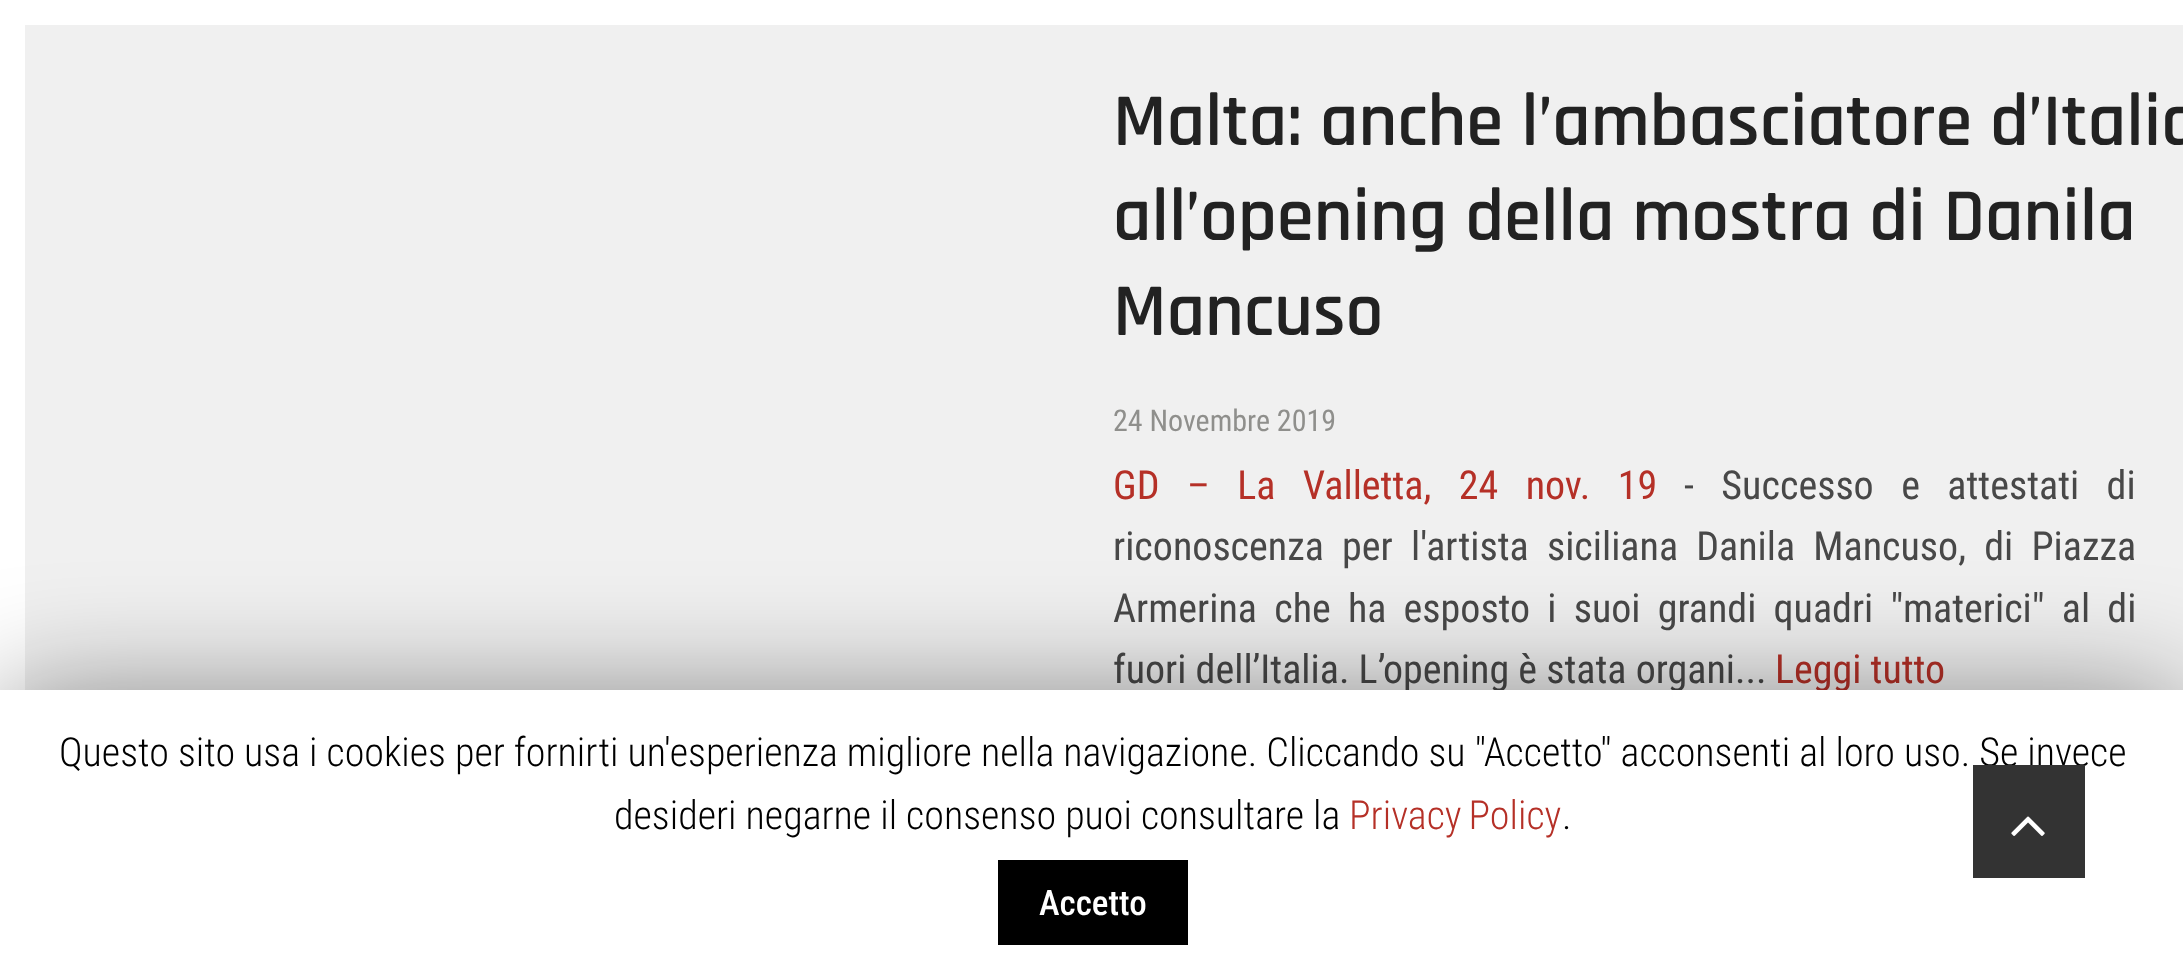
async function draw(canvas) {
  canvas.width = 2183
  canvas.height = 977
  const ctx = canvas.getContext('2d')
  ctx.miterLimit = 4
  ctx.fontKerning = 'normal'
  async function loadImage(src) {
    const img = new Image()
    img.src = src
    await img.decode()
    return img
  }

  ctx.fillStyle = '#fff'
  ctx.fillRect(0, 0, 2183, 977)
  ctx.fillStyle = '#f0f0f0'
  ctx.fillRect(25, 25, 2158, 665)
  ctx.font = '600 75px Rajdhani'
  ctx.fillStyle = '#222'
  ctx.fillText('Malta: anche l’ambasciatore d’Italia', 1113, 145)
  ctx.fillText('all’opening della mostra di Danila', 1113, 240)
  ctx.fillText('Mancuso', 1113, 335)
  ctx.font = '30px Roboto Condensed'
  ctx.fillStyle = '#8f8f8c'
  ctx.fillText('24 Novembre 2019', 1113, 431)
  ctx.wordSpacing = '18.25px'
  ctx.font = '40px Roboto Condensed'
  ctx.fillStyle = '#b53027'
  ctx.fillText('GD – La Valletta, 24 nov. 19', 1113, 499)
  ctx.fillStyle = '#484848'
  ctx.fillText('- Successo e attestati di', 1684, 499)
  ctx.wordSpacing = '9px'
  ctx.fillText('riconoscenza per l\'artista siciliana Danila Mancuso, di Piazza', 1113, 560)
  ctx.wordSpacing = '8px'
  ctx.fillText('Armerina che ha esposto i suoi grandi quadri "materici" al di', 1113, 622)
  ctx.wordSpacing = '0px'
  ctx.fillText('fuori dell’Italia. L’opening è stata organi...', 1113, 683)
  ctx.fillStyle = '#b53027'
  ctx.fillText('Leggi tutto', 1775, 683)
  ctx.fillStyle = '#00000080'
  ctx.filter = 'blur(62.5px)'
  ctx.beginPath()
  ctx.rect(0, 703, 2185, 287)
  ctx.fill()
  ctx.filter = 'none'
  ctx.fillStyle = '#fff'
  ctx.fillRect(0, 690, 2183, 287)
  ctx.font = '300 40px Roboto Condensed'
  ctx.fillStyle = '#000'
  ctx.fillText('Questo sito usa i cookies per fornirti un\'esperienza migliore nella navigazione. Cliccando su "Accetto" acconsenti al loro uso. Se invece', 59, 766)
  ctx.fillStyle = '#333'
  ctx.fillRect(1973, 765, 112, 113)
  ctx.drawImage(await loadImage('image0.png'), 2011, 816, 34, 20)
  ctx.fillStyle = '#000'
  ctx.fillText('desideri negarne il consenso puoi consultare la', 614, 829)
  ctx.wordSpacing = '-2px'
  ctx.fillStyle = '#b53027'
  ctx.fillText('Privacy Policy', 1349, 829)
  ctx.wordSpacing = '0px'
  ctx.fillStyle = '#000'
  ctx.fillText('.', 1562, 829)
  ctx.fillRect(998, 860, 190, 85)
  ctx.font = '500 35px Roboto Condensed'
  ctx.fillStyle = '#fff'
  ctx.fillText('Accetto', 1039, 915)
}

draw(document.querySelector('canvas'))
